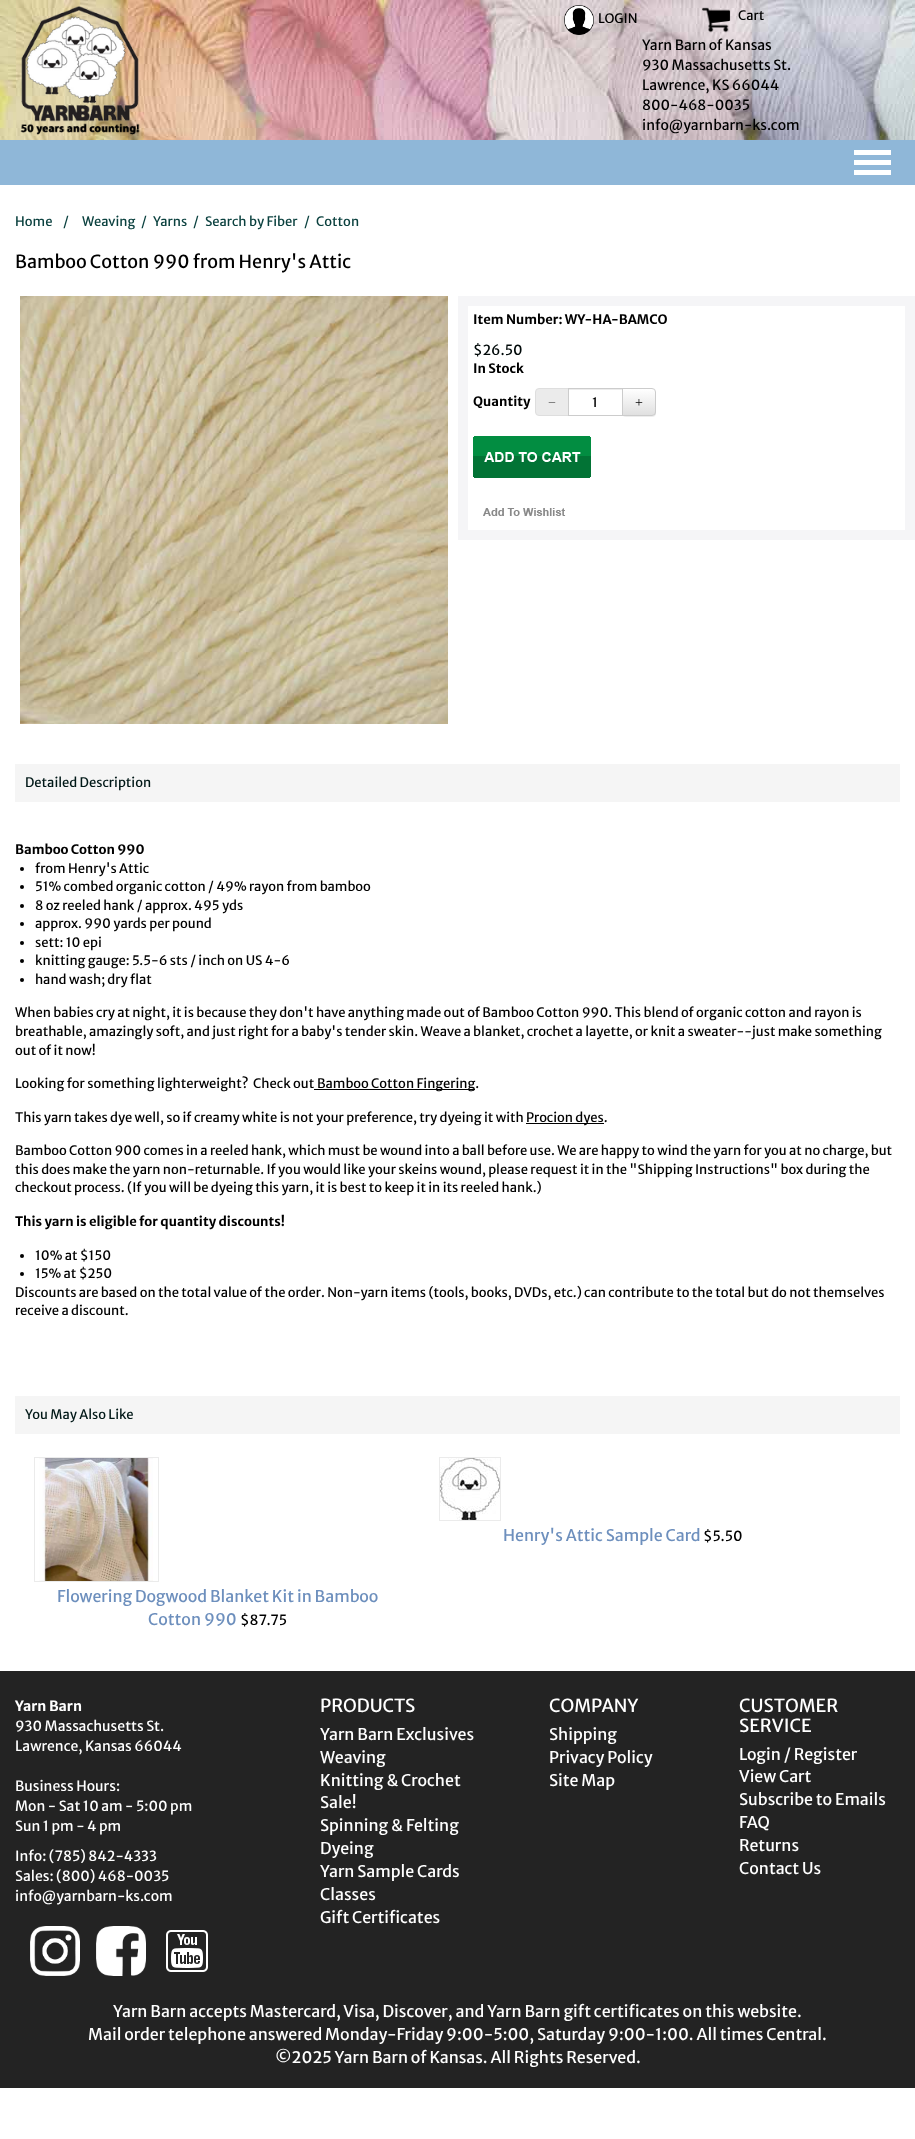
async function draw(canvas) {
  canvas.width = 915
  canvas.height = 2139
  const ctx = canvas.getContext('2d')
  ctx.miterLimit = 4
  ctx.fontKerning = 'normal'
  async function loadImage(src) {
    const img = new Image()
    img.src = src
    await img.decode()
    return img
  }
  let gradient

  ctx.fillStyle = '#fff'
  ctx.fillRect(0, 0, 915, 2139)
  ctx.drawImage(await loadImage('image0.png'), 0, 0, 915, 140)
  ctx.drawImage(await loadImage('image1.png'), 20, 6, 120, 129)
  ctx.drawImage(await loadImage('image2.png'), 564, 5, 30, 30)
  ctx.font = '13px Merriweather Sans'
  ctx.fillStyle = '#000'
  ctx.fillText('LOGIN', 598, 23)
  ctx.drawImage(await loadImage('image3.png'), 702, 7, 29, 26)
  ctx.fillText('Cart', 738, 20)
  ctx.font = '14px Merriweather Sans'
  ctx.fillText('Yarn Barn of Kansas', 642, 50)
  ctx.fillText('930 Massachusetts St.', 642, 70)
  ctx.fillText('Lawrence, KS 66044', 642, 90)
  ctx.fillText('800-468-0035', 642, 110)
  ctx.fillText('info@yarnbarn-ks.com', 642, 130)
  ctx.fillStyle = '#8fb7d8'
  ctx.fillRect(0, 140, 915, 45)
  ctx.fillStyle = '#fff'
  ctx.fillRect(854, 170, 37, 5)
  ctx.fillRect(854, 160, 37, 5)
  ctx.fillRect(854, 150, 37, 5)
  ctx.font = '13px Merriweather Sans'
  ctx.fillStyle = '#0b413f'
  ctx.fillText('Home', 15, 226)
  ctx.fillText('/', 63, 226)
  ctx.fillText('Weaving', 82, 226)
  ctx.fillText('/', 141, 226)
  ctx.fillText('Yarns', 153, 226)
  ctx.fillText('/', 193, 226)
  ctx.fillText('Search by Fiber', 205, 226)
  ctx.fillText('/', 304, 226)
  ctx.fillText('Cotton', 316, 226)
  ctx.font = '18px Merriweather Sans'
  ctx.fillStyle = '#000'
  ctx.fillText('Bamboo Cotton 990 from Henry\'s Attic', 15, 268)
  ctx.drawImage(await loadImage('image4.png'), 20, 296, 428, 428)
  ctx.strokeStyle = '#f5f5f7'
  ctx.lineWidth = 10
  ctx.strokeRect(463, 301, 447, 234)
  ctx.font = 'bold 13px Merriweather Sans'
  ctx.fillText('Item Number: WY-HA-BAMCO', 473, 324)
  ctx.font = '14px Merriweather Sans'
  ctx.fillStyle = '#000909'
  ctx.fillText('$26.50', 473, 355)
  ctx.font = 'bold 13px Merriweather Sans'
  ctx.fillStyle = '#000'
  ctx.fillText('In Stock', 473, 373)
  ctx.fillText('Quantity', 473, 406)
  ctx.fillStyle = '#ebebeb'
  ctx.beginPath()
  ctx.roundRect(535.5, 388.5, 33, 27, [3.5, 0, 0, 3.5])
  ctx.fill()
  ctx.strokeStyle = '#dedede'
  ctx.lineWidth = 1
  ctx.stroke()
  ctx.font = '14px Liberation Serif'
  ctx.fillStyle = '#595959'
  ctx.fillText('−', 548, 407)
  ctx.fillStyle = '#ececec'
  ctx.fillRect(569, 389, 53, 1)
  ctx.strokeStyle = '#ccc'
  ctx.strokeRect(568.5, 388.5, 54, 27)
  ctx.font = '13px Merriweather Sans'
  ctx.fillStyle = '#000'
  ctx.fillText('1', 592, 407)
  ctx.fillStyle = '#00000012'
  ctx.filter = 'blur(0.5px)'
  ctx.beginPath()
  ctx.roundRect(622, 389, 34, 28, 4)
  ctx.fill()
  ctx.filter = 'none'
  ctx.save()
  ctx.beginPath()
  ctx.roundRect(622, 388, 34, 28, [0, 4, 4, 0])
  ctx.clip()
  gradient = ctx.createLinearGradient(639, 389, 639, 415)
  gradient.addColorStop(0, '#fff')
  gradient.addColorStop(1, '#e0e0e0')
  ctx.fillStyle = gradient
  ctx.fillRect(623, 389, 33, 26)
  ctx.restore()
  ctx.beginPath()
  ctx.roundRect(622.5, 388.5, 33, 27, [0, 3.5, 3.5, 0])
  ctx.stroke()
  ctx.font = '14px Liberation Serif'
  ctx.fillStyle = '#000'
  ctx.fillText('+', 635, 407)
  ctx.drawImage(await loadImage('image5.png'), 473, 436, 118, 42)
  ctx.drawImage(await loadImage('image6.png'), 483, 508, 83, 8)
  ctx.fillStyle = '#f5f5f5'
  ctx.fillRect(15, 764, 885, 38)
  ctx.font = '13px Merriweather Sans'
  ctx.fillStyle = '#001817'
  ctx.fillText('Detailed Description', 25, 787)
  ctx.font = 'bold 13px Merriweather Sans'
  ctx.fillStyle = '#000'
  ctx.fillText('Bamboo Cotton 990', 15, 854)
  ctx.beginPath()
  ctx.arc(22, 869, 2, 0, 2 * Math.PI)
  ctx.fill()
  ctx.font = '13px Merriweather Sans'
  ctx.fillText('from Henry\'s Attic', 35, 873)
  ctx.beginPath()
  ctx.arc(22, 887, 2, 0, 2 * Math.PI)
  ctx.fill()
  ctx.fillText('51% combed organic cotton / 49% rayon from bamboo', 35, 891)
  ctx.beginPath()
  ctx.arc(22, 906, 2, 0, 2 * Math.PI)
  ctx.fill()
  ctx.fillText('8 oz reeled hank / approx. 495 yds', 35, 910)
  ctx.beginPath()
  ctx.arc(22, 924, 2, 0, 2 * Math.PI)
  ctx.fill()
  ctx.fillText('approx. 990 yards per pound', 35, 928)
  ctx.beginPath()
  ctx.arc(22, 943, 2, 0, 2 * Math.PI)
  ctx.fill()
  ctx.fillText('sett: 10 epi', 35, 947)
  ctx.beginPath()
  ctx.arc(22, 961, 2, 0, 2 * Math.PI)
  ctx.fill()
  ctx.fillText('knitting gauge: 5.5-6 sts / inch on US 4-6', 35, 965)
  ctx.beginPath()
  ctx.arc(22, 980, 2, 0, 2 * Math.PI)
  ctx.fill()
  ctx.fillText('hand wash; dry flat', 35, 984)
  ctx.fillText('When babies cry at night, it is because they don\'t have anything made out of Bamboo Cotton 990. This blend of organic cotton and rayon is', 15, 1017)
  ctx.fillText('breathable, amazingly soft, and just right for a baby\'s tender skin. Weave a blanket, crochet a layette, or knit a sweater--just make something', 15, 1036)
  ctx.fillText('out of it now!', 15, 1055)
  ctx.fillText('Looking for something lighterweight?  Check out', 15, 1088)
  ctx.fillRect(314, 1089, 161, 1)
  ctx.fillText('Bamboo Cotton Fingering.', 317, 1088)
  ctx.fillText('This yarn takes dye well, so if creamy white is not your preference, try dyeing it with', 15, 1122)
  ctx.fillRect(526, 1123, 78, 1)
  ctx.fillText('Procion dyes.', 526, 1122)
  ctx.fillText('Bamboo Cotton 900 comes in a reeled hank, which must be wound into a ball before use. We are happy to wind the yarn for you at no charge, but', 15, 1155)
  ctx.fillText('this does make the yarn non-returnable. If you would like your skeins wound, please request it in the "Shipping Instructions" box during the', 15, 1174)
  ctx.fillText('checkout process. (If you will be dyeing this yarn, it is best to keep it in its reeled hank.)', 15, 1192)
  ctx.font = 'bold 13px Merriweather Sans'
  ctx.fillText('This yarn is eligible for quantity discounts!', 15, 1226)
  ctx.beginPath()
  ctx.arc(22, 1256, 2, 0, 2 * Math.PI)
  ctx.fill()
  ctx.font = '13px Merriweather Sans'
  ctx.fillText('10% at $150', 35, 1260)
  ctx.beginPath()
  ctx.arc(22, 1274, 2, 0, 2 * Math.PI)
  ctx.fill()
  ctx.fillText('15% at $250', 35, 1278)
  ctx.fillText('Discounts are based on the total value of the order. Non-yarn items (tools, books, DVDs, etc.) can contribute to the total but do not themselves', 15, 1297)
  ctx.fillText('receive a discount.', 15, 1315)
  ctx.fillStyle = '#f5f5f5'
  ctx.fillRect(15, 1396, 885, 38)
  ctx.fillStyle = '#001817'
  ctx.fillText('You May Also Like', 25, 1419)
  ctx.strokeStyle = '#ebebeb'
  ctx.strokeRect(439.5, 1457.5, 61, 63)
  ctx.drawImage(await loadImage('image7.png'), 440, 1458, 60, 62)
  ctx.font = '16px Merriweather Sans'
  ctx.fillStyle = '#6d8fbd'
  ctx.fillText('Henry\'s Attic Sample Card', 503, 1541)
  ctx.font = '14px Merriweather Sans'
  ctx.fillStyle = '#000'
  ctx.fillText('$5.50', 703, 1541)
  ctx.strokeRect(34.5, 1457.5, 124, 124)
  ctx.drawImage(await loadImage('image8.png'), 39, 1458, 114, 123)
  ctx.font = '16px Merriweather Sans'
  ctx.fillStyle = '#6d8fbd'
  ctx.fillText('Flowering Dogwood Blanket Kit in Bamboo', 57, 1602)
  ctx.fillText('Cotton 990', 148, 1625)
  ctx.font = '14px Merriweather Sans'
  ctx.fillStyle = '#000'
  ctx.fillText('$87.75', 240, 1625)
  ctx.fillStyle = '#232323'
  ctx.fillRect(0, 1671, 915, 417)
  ctx.font = 'bold 14px Merriweather Sans'
  ctx.fillStyle = '#fff'
  ctx.fillText('Yarn Barn', 15, 1711)
  ctx.font = '14px Merriweather Sans'
  ctx.fillText('930 Massachusetts St.', 15, 1731)
  ctx.fillText('Lawrence, Kansas 66044', 15, 1751)
  ctx.fillText('Business Hours:', 15, 1791)
  ctx.fillText('Mon - Sat 10 am - 5:00 pm', 15, 1811)
  ctx.fillText('Sun 1 pm - 4 pm', 15, 1831)
  ctx.fillText('Info: (785) 842-4333', 15, 1861)
  ctx.fillText('Sales: (800) 468-0035', 15, 1881)
  ctx.fillText('info@yarnbarn-ks.com', 15, 1901)
  ctx.drawImage(await loadImage('image9.png'), 30, 1926, 50, 50)
  ctx.drawImage(await loadImage('image10.png'), 96, 1926, 50, 50)
  ctx.drawImage(await loadImage('image11.png'), 166, 1930, 42, 42)
  ctx.font = '18px Merriweather Sans'
  ctx.fillText('PRODUCTS', 320, 1712)
  ctx.font = '16px Merriweather Sans'
  ctx.fillText('Yarn Barn Exclusives', 320, 1740)
  ctx.fillText('Weaving', 320, 1763)
  ctx.fillText('Knitting & Crochet', 320, 1786)
  ctx.fillText('Sale!', 320, 1808)
  ctx.fillText('Spinning & Felting', 320, 1831)
  ctx.fillText('Dyeing', 320, 1854)
  ctx.fillText('Yarn Sample Cards', 320, 1877)
  ctx.fillText('Classes', 320, 1900)
  ctx.fillText('Gift Certificates', 320, 1923)
  ctx.font = '18px Merriweather Sans'
  ctx.fillText('COMPANY', 549, 1712)
  ctx.font = '16px Merriweather Sans'
  ctx.fillText('Shipping', 549, 1740)
  ctx.fillText('Privacy Policy', 549, 1763)
  ctx.fillText('Site Map', 549, 1786)
  ctx.font = '18px Merriweather Sans'
  ctx.fillText('CUSTOMER', 739, 1712)
  ctx.fillText('SERVICE', 739, 1732)
  ctx.font = '16px Merriweather Sans'
  ctx.fillText('Login / Register', 739, 1760)
  ctx.fillText('View Cart', 739, 1782)
  ctx.fillText('Subscribe to Emails', 739, 1805)
  ctx.fillText('FAQ', 739, 1828)
  ctx.fillText('Returns', 739, 1851)
  ctx.fillText('Contact Us', 739, 1874)
  ctx.fillText('Yarn Barn accepts Mastercard, Visa, Discover, and Yarn Barn gift certificates on this website.', 113, 2017)
  ctx.fillText('Mail order telephone answered Monday-Friday 9:00-5:00, Saturday 9:00-1:00. All times Central.', 88, 2040)
  ctx.fillText('©2025 Yarn Barn of Kansas. All Rights Reserved.', 275, 2063)
}

draw(document.querySelector('canvas'))
